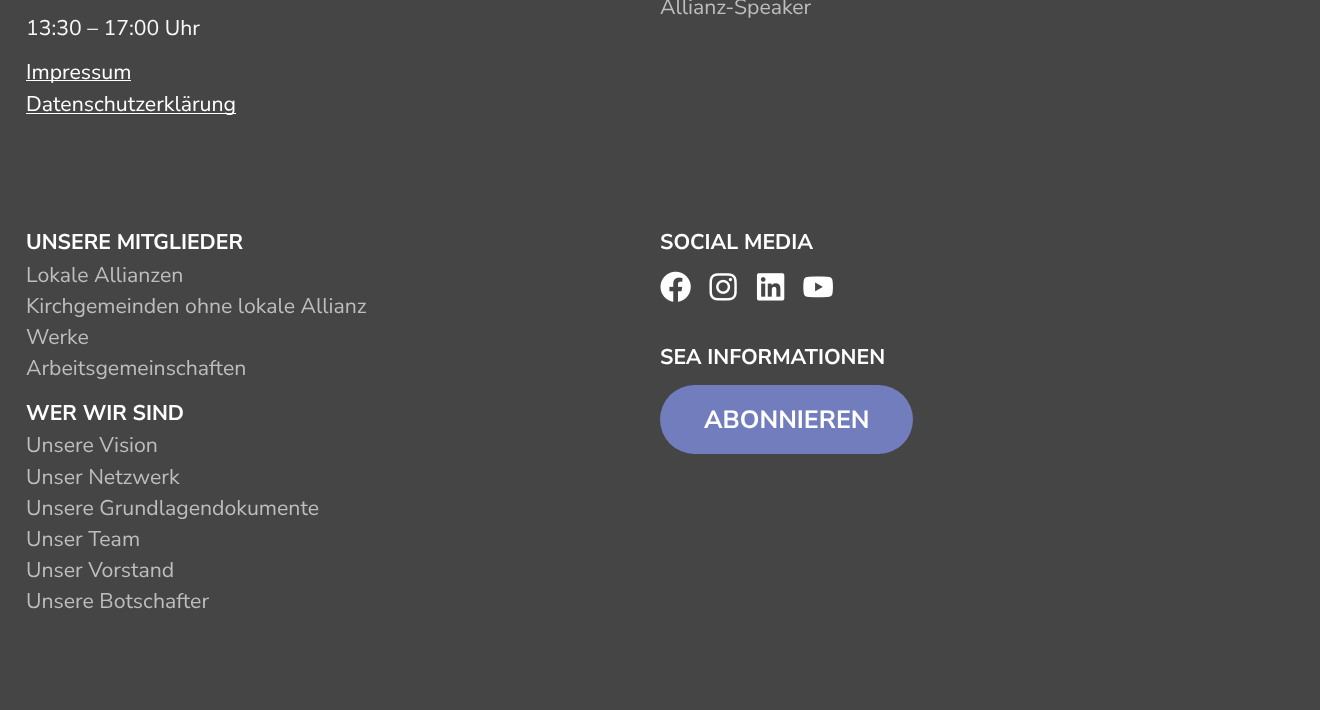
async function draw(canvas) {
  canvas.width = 1320
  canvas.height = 710
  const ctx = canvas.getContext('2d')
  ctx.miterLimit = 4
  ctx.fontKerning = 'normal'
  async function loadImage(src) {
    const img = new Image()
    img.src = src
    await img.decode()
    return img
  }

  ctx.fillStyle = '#454545'
  ctx.fillRect(0, 0, 1320, 710)
  ctx.font = '21.25px Nunito Sans'
  ctx.fillStyle = '#bdbdbd'
  ctx.fillText('Allianz-Speaker', 660, 14)
  ctx.fillStyle = '#f8f8f8'
  ctx.fillText('13:30 – 17:00 Uhr', 26, 35)
  ctx.fillStyle = '#fff'
  ctx.fillRect(26, 80, 105, 1)
  ctx.fillText('Impressum', 26, 79)
  ctx.fillRect(26, 113, 210, 1)
  ctx.fillText('Datenschutzerklärung', 26, 111)
  ctx.font = 'bold 21.25px Nunito Sans'
  ctx.fillText('UNSERE MITGLIEDER', 26, 249)
  ctx.font = '21.25px Nunito Sans'
  ctx.fillStyle = '#bdbdbd'
  ctx.fillText('Lokale Allianzen', 26, 282)
  ctx.fillText('Kirchgemeinden ohne lokale Allianz', 26, 313)
  ctx.fillText('Werke', 26, 344)
  ctx.fillText('Arbeitsgemeinschaften', 26, 375)
  ctx.font = 'bold 21.25px Nunito Sans'
  ctx.fillStyle = '#fff'
  ctx.fillText('WER WIR SIND', 26, 420)
  ctx.font = '21.25px Nunito Sans'
  ctx.fillStyle = '#bdbdbd'
  ctx.fillText('Unsere Vision', 26, 452)
  ctx.fillText('Unser Netzwerk', 26, 484)
  ctx.fillText('Unsere Grundlagendokumente', 26, 515)
  ctx.fillText('Unser Team', 26, 546)
  ctx.fillText('Unser Vorstand', 26, 577)
  ctx.fillText('Unsere Botschafter', 26, 608)
  ctx.font = 'bold 21.25px Nunito Sans'
  ctx.fillStyle = '#fff'
  ctx.fillText('SOCIAL MEDIA', 660, 249)
  ctx.drawImage(await loadImage('image0.png'), 660, 271, 31, 31)
  ctx.drawImage(await loadImage('image1.png'), 709, 273, 28, 28)
  ctx.drawImage(await loadImage('image2.png'), 756, 273, 29, 28)
  ctx.drawImage(await loadImage('image3.png'), 803, 276, 30, 22)
  ctx.fillText('SEA INFORMATIONEN', 660, 364)
  ctx.fillStyle = '#727dbe'
  ctx.beginPath()
  ctx.roundRect(660, 385, 253, 69, 34.5)
  ctx.fill()
  ctx.font = 'bold 25px Nunito Sans'
  ctx.fillStyle = '#fff'
  ctx.fillText('ABONNIEREN', 704, 428)
}

draw(document.querySelector('canvas'))
